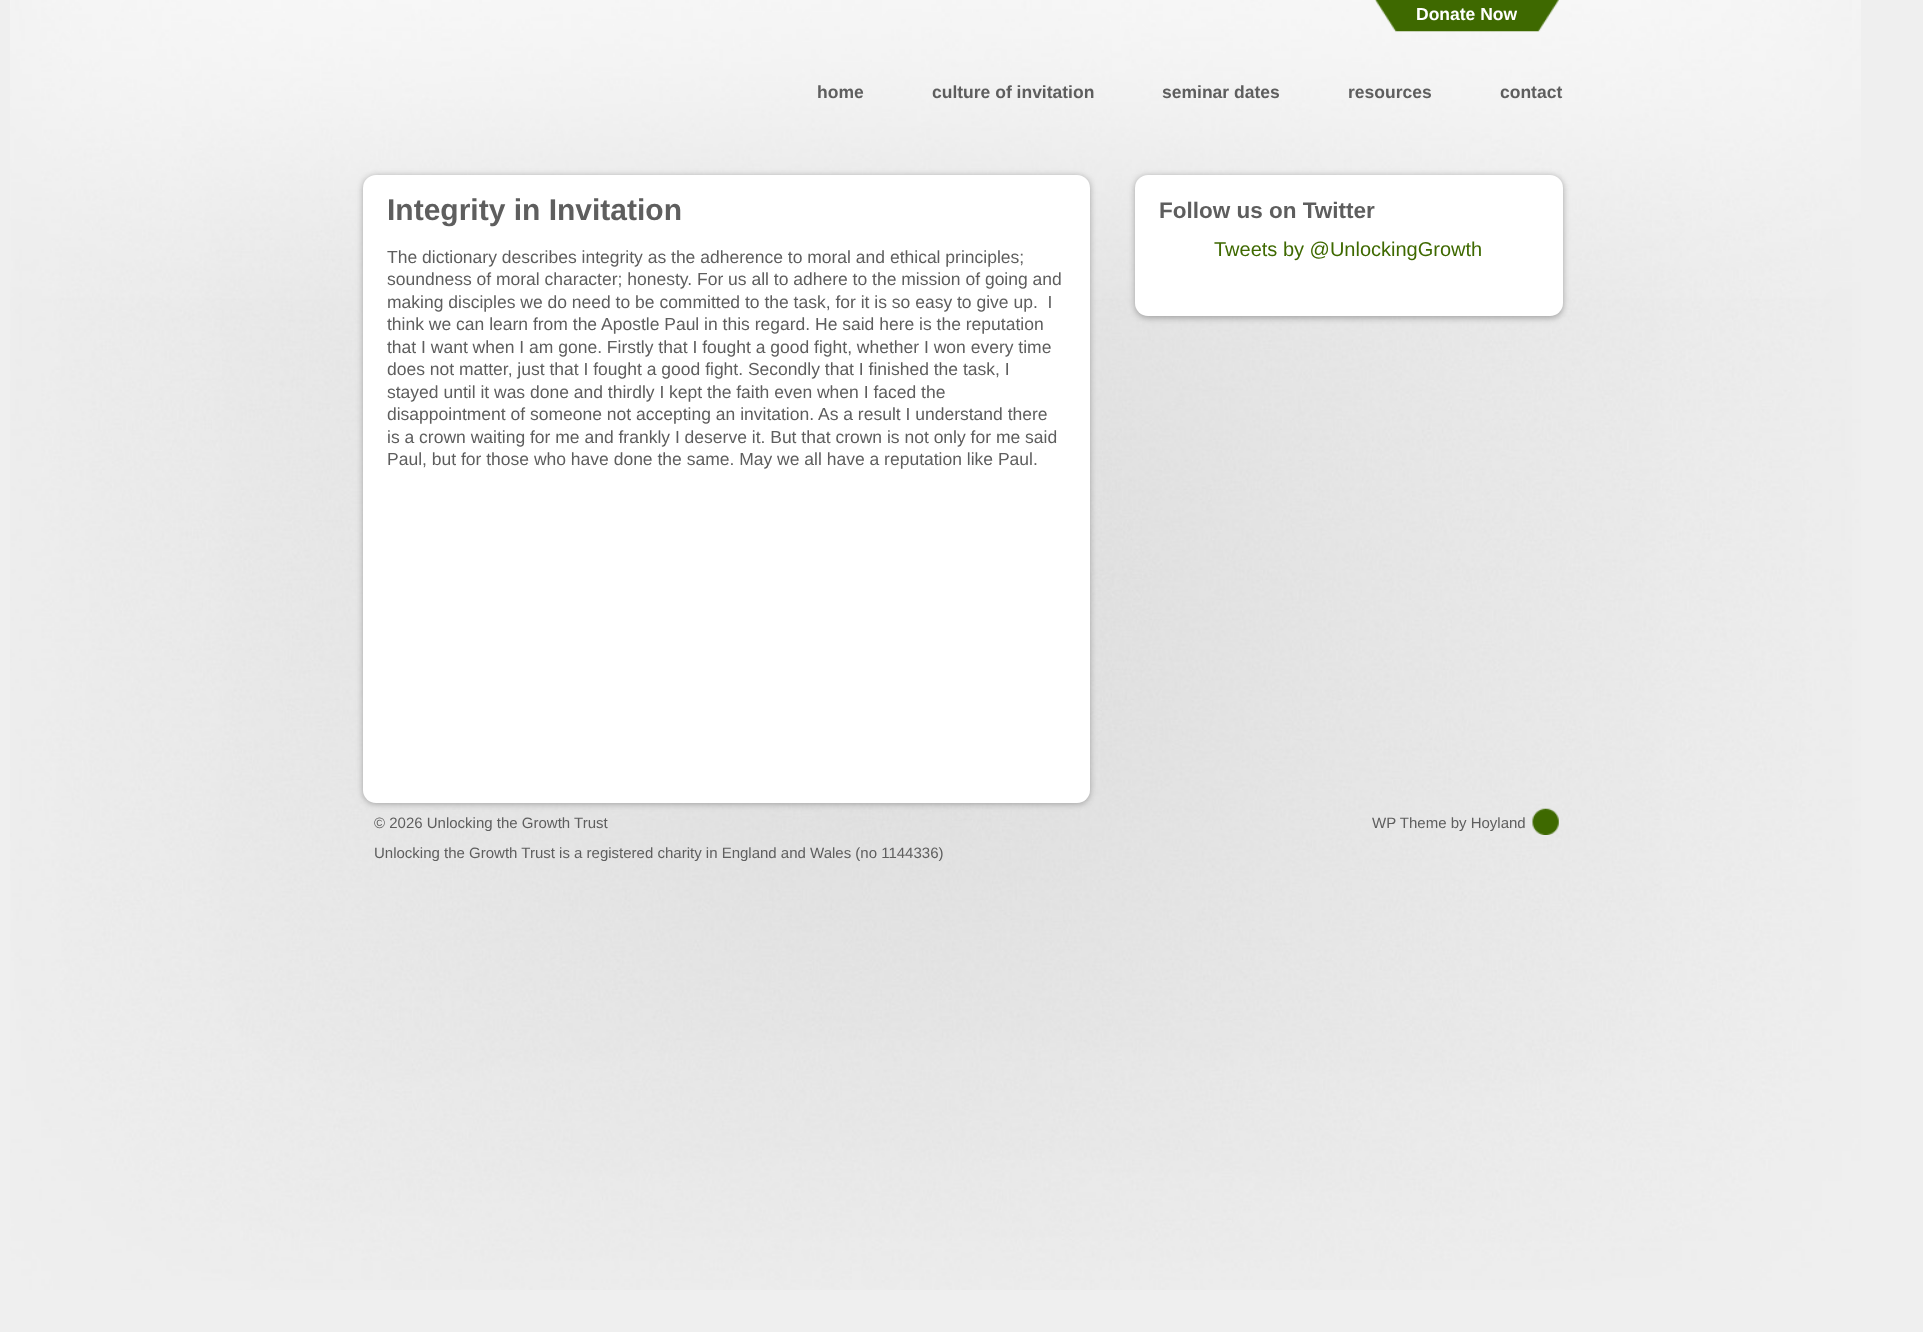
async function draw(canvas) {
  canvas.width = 1923
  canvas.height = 1332
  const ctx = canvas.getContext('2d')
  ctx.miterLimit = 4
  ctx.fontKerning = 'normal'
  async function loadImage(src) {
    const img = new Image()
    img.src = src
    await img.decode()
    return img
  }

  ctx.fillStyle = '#efefef'
  ctx.fillRect(0, 0, 1923, 1332)
  ctx.drawImage(await loadImage('image0.png'), 10, 0, 1851, 1290)
  ctx.drawImage(await loadImage('image1.png'), 1375, 0, 184, 32)
  ctx.font = 'bold 17.5px Liberation Sans'
  ctx.fillStyle = '#fff'
  ctx.fillText('Donate Now', 1416, 20)
  ctx.fillStyle = '#5e5e5e'
  ctx.fillText('home', 817, 98)
  ctx.fillText('culture of invitation', 932, 98)
  ctx.fillText('seminar dates', 1162, 98)
  ctx.fillText('resources', 1348, 98)
  ctx.fillText('contact', 1500, 98)
  ctx.fillStyle = '#8a8a8abf'
  ctx.filter = 'blur(3px)'
  ctx.beginPath()
  ctx.roundRect(363, 176, 727, 628, 13)
  ctx.fill()
  ctx.filter = 'none'
  ctx.fillStyle = '#fff'
  ctx.beginPath()
  ctx.roundRect(363, 175, 727, 628, 13)
  ctx.fill()
  ctx.font = 'bold 30px Liberation Sans'
  ctx.fillStyle = '#5e5e5e'
  ctx.fillText('Integrity in Invitation', 387, 220)
  ctx.font = '17.5px Liberation Sans'
  ctx.fillText('The dictionary describes integrity as the adherence to moral and ethical principles;', 387, 263)
  ctx.fillText('soundness of moral character; honesty. For us all to adhere to the mission of going and', 387, 285)
  ctx.fillText('making disciples we do need to be committed to the task, for it is so easy to give up.  I', 387, 308)
  ctx.fillText('think we can learn from the Apostle Paul in this regard. He said here is the reputation', 387, 330)
  ctx.fillText('that I want when I am gone. Firstly that I fought a good fight, whether I won every time', 387, 353)
  ctx.fillText('does not matter, just that I fought a good fight. Secondly that I finished the task, I', 387, 375)
  ctx.fillText('stayed until it was done and thirdly I kept the faith even when I faced the', 387, 398)
  ctx.fillText('disappointment of someone not accepting an invitation. As a result I understand there', 387, 420)
  ctx.fillText('is a crown waiting for me and frankly I deserve it. But that crown is not only for me said', 387, 443)
  ctx.fillText('Paul, but for those who have done the same. May we all have a reputation like Paul.', 387, 465)
  ctx.fillStyle = '#8a8a8abf'
  ctx.filter = 'blur(3px)'
  ctx.beginPath()
  ctx.roundRect(1135, 176, 428, 142, 13)
  ctx.fill()
  ctx.filter = 'none'
  ctx.fillStyle = '#fff'
  ctx.beginPath()
  ctx.roundRect(1135, 175, 428, 141, 13)
  ctx.fill()
  ctx.font = 'bold 22.5px Liberation Sans'
  ctx.fillStyle = '#5e5e5e'
  ctx.fillText('Follow us on Twitter', 1159, 218)
  ctx.font = '20px Liberation Sans'
  ctx.fillStyle = '#3e6900'
  ctx.fillText('Tweets by @UnlockingGrowth', 1214, 256)
  ctx.font = '15px Liberation Sans'
  ctx.fillStyle = '#5e5e5e'
  ctx.fillText('© 2026 Unlocking the Growth Trust', 374, 828)
  ctx.fillText('Unlocking the Growth Trust is a registered charity in England and Wales (no 1144336)', 374, 858)
  ctx.fillText('WP Theme by Hoyland', 1372, 828)
  ctx.drawImage(await loadImage('image2.png'), 1532, 808, 27, 27)
}

draw(document.querySelector('canvas'))
